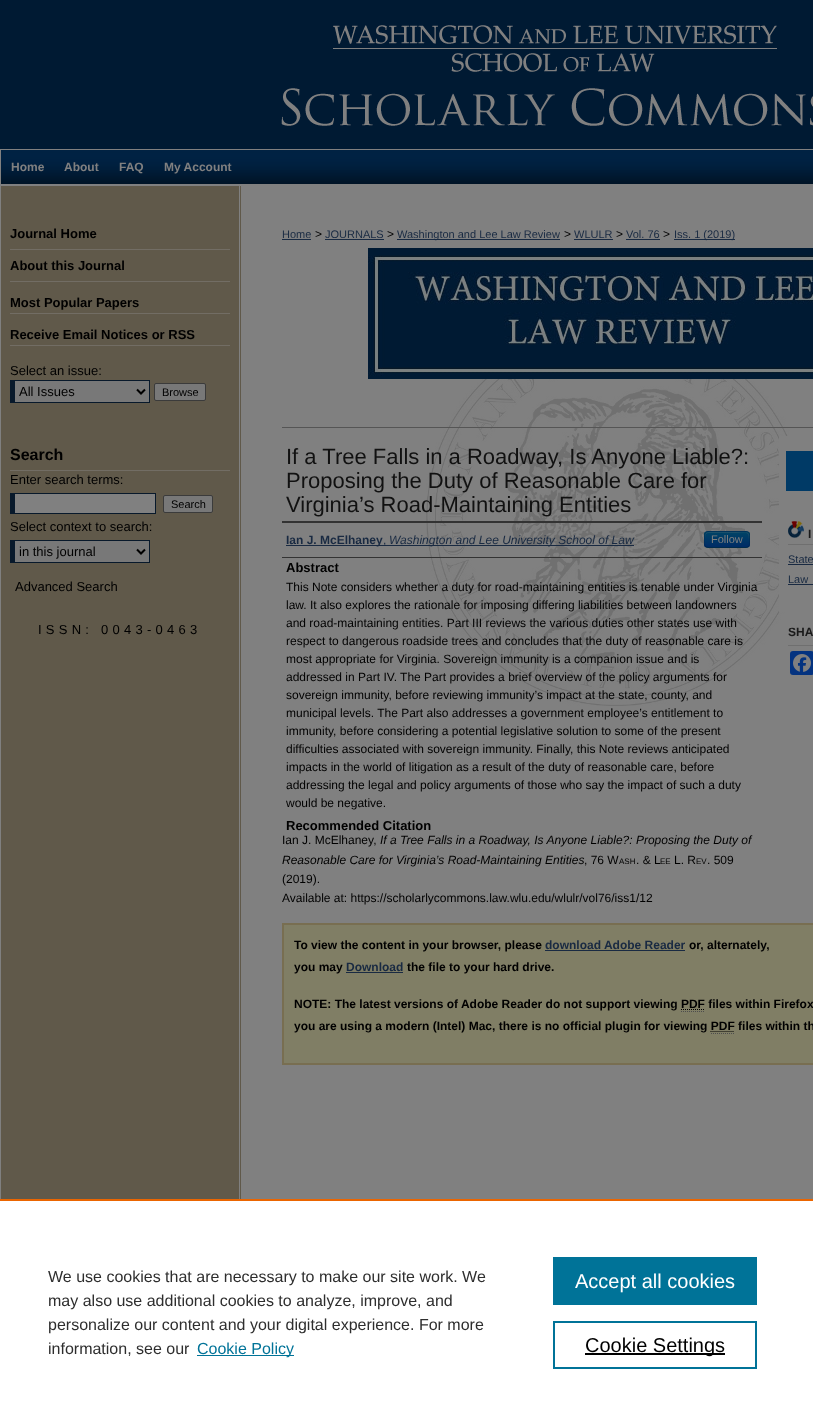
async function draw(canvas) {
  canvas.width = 813
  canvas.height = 1425
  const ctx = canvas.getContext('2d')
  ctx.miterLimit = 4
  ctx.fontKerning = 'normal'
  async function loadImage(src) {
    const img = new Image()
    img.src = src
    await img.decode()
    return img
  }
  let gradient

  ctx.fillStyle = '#001a33'
  ctx.fillRect(0, 0, 813, 1425)
  ctx.drawImage(await loadImage('image0.png'), 281, 25, 532, 101)
  ctx.drawImage(await loadImage('image1.png'), 1, 150, 812, 34)
  ctx.fillStyle = '#808080'
  ctx.fillRect(0, 149, 813, 1)
  ctx.fillRect(0, 184, 813, 2)
  ctx.fillRect(0, 149, 1, 37)
  ctx.font = 'bold 12px Liberation Sans'
  ctx.fillText('Home', 11, 171)
  ctx.fillText('About', 64, 171)
  ctx.fillText('FAQ', 119, 171)
  ctx.fillText('My Account', 164, 171)
  ctx.drawImage(await loadImage('image2.png'), 0, 186, 813, 1013)
  ctx.fillStyle = '#726d64'
  ctx.fillRect(10, 249, 220, 1)
  ctx.font = 'bold 13px Liberation Sans'
  ctx.fillStyle = '#000'
  ctx.fillText('Journal Home', 10, 238)
  ctx.fillStyle = '#726d64'
  ctx.fillRect(10, 281, 220, 1)
  ctx.fillStyle = '#000'
  ctx.fillText('About this Journal', 10, 270)
  ctx.fillStyle = '#726d64'
  ctx.fillRect(10, 313, 220, 1)
  ctx.fillStyle = '#000'
  ctx.fillText('Most Popular Papers', 10, 307)
  ctx.fillStyle = '#726d64'
  ctx.fillRect(10, 345, 220, 1)
  ctx.fillStyle = '#000'
  ctx.fillText('Receive Email Notices or RSS', 10, 339)
  ctx.font = '13px Liberation Sans'
  ctx.fillText('Select an issue:', 10, 375)
  ctx.fillStyle = '#787878'
  ctx.fillRect(15, 381, 134, 21)
  ctx.fillStyle = '#08192b'
  ctx.fillRect(10, 380, 140, 1)
  ctx.fillRect(149, 380, 1, 23)
  ctx.fillRect(10, 402, 140, 1)
  ctx.fillRect(10, 380, 5, 23)
  ctx.beginPath()
  ctx.moveTo(137, 389.5)
  ctx.lineTo(141, 393.5)
  ctx.lineTo(145, 389.5)
  ctx.strokeStyle = '#000'
  ctx.lineWidth = 2
  ctx.stroke()
  ctx.fillStyle = '#000'
  ctx.fillText('All Issues', 19, 396)
  ctx.fillStyle = '#787878'
  ctx.beginPath()
  ctx.roundRect(154.5, 383.5, 51, 17, 1.5)
  ctx.fill()
  ctx.strokeStyle = '#3b3b3b'
  ctx.lineWidth = 1
  ctx.stroke()
  ctx.font = '11px Liberation Sans'
  ctx.fillStyle = '#000'
  ctx.fillText('Browse', 162, 396)
  ctx.fillStyle = '#726d64'
  ctx.fillRect(10, 470, 220, 1)
  ctx.font = 'bold 16px Liberation Sans'
  ctx.fillStyle = '#000'
  ctx.fillText('Search', 10, 460)
  ctx.font = '13px Liberation Sans'
  ctx.fillText('Enter search terms:', 10, 484)
  ctx.fillStyle = '#808080'
  ctx.fillRect(15, 494, 140, 19)
  ctx.fillStyle = '#08192b'
  ctx.fillRect(10, 493, 146, 1)
  ctx.fillRect(155, 493, 1, 21)
  ctx.fillRect(10, 513, 146, 1)
  ctx.fillRect(10, 493, 5, 21)
  ctx.fillStyle = '#787878'
  ctx.beginPath()
  ctx.roundRect(163.5, 495.5, 49, 17, 1.5)
  ctx.fill()
  ctx.stroke()
  ctx.font = '11px Liberation Sans'
  ctx.fillStyle = '#000'
  ctx.fillText('Search', 171, 508)
  ctx.font = '13px Liberation Sans'
  ctx.fillText('Select context to search:', 10, 531)
  ctx.fillStyle = '#787878'
  ctx.fillRect(15, 541, 134, 21)
  ctx.fillStyle = '#08192b'
  ctx.fillRect(10, 540, 140, 1)
  ctx.fillRect(149, 540, 1, 23)
  ctx.fillRect(10, 562, 140, 1)
  ctx.fillRect(10, 540, 5, 23)
  ctx.beginPath()
  ctx.moveTo(137, 549.5)
  ctx.lineTo(141, 553.5)
  ctx.lineTo(145, 549.5)
  ctx.strokeStyle = '#000'
  ctx.lineWidth = 2
  ctx.stroke()
  ctx.fillStyle = '#000'
  ctx.fillText('in this journal', 19, 556)
  ctx.fillText('Advanced Search', 15, 591)
  ctx.letterSpacing = '4.25px'
  ctx.fillText('ISSN: 0043-0463', 38, 634)
  ctx.drawImage(await loadImage('image3.png'), 426, 379, 379, 327)
  ctx.drawImage(await loadImage('image4.png'), 368, 248, 445, 131)
  ctx.letterSpacing = '0px'
  ctx.font = '11px Liberation Sans'
  ctx.fillStyle = '#192a42'
  ctx.fillText('Home', 282, 238)
  ctx.fillRect(282, 239, 29, 1)
  ctx.font = '12px Liberation Sans'
  ctx.fillStyle = '#000'
  ctx.fillText('>', 315, 238)
  ctx.font = '11px Liberation Sans'
  ctx.fillStyle = '#192a42'
  ctx.fillText('JOURNALS', 325, 238)
  ctx.fillRect(325, 239, 59, 1)
  ctx.font = '12px Liberation Sans'
  ctx.fillStyle = '#000'
  ctx.fillText('>', 387, 238)
  ctx.fillStyle = '#192a42'
  ctx.fillRect(397, 239, 163, 1)
  ctx.font = '11px Liberation Sans'
  ctx.fillText('Washington and Lee Law Review', 397, 238)
  ctx.font = '12px Liberation Sans'
  ctx.fillStyle = '#000'
  ctx.fillText('>', 564, 238)
  ctx.font = '11px Liberation Sans'
  ctx.fillStyle = '#192a42'
  ctx.fillText('WLULR', 574, 238)
  ctx.fillRect(574, 239, 39, 1)
  ctx.font = '12px Liberation Sans'
  ctx.fillStyle = '#000'
  ctx.fillText('>', 616, 238)
  ctx.font = '11px Liberation Sans'
  ctx.fillStyle = '#192a42'
  ctx.fillText('Vol. 76', 626, 238)
  ctx.fillRect(626, 239, 34, 1)
  ctx.font = '12px Liberation Sans'
  ctx.fillStyle = '#000'
  ctx.fillText('>', 663, 238)
  ctx.fillStyle = '#192a42'
  ctx.fillRect(674, 239, 61, 1)
  ctx.font = '11px Liberation Sans'
  ctx.fillText('Iss. 1 (2019)', 674, 238)
  ctx.fillStyle = '#555'
  ctx.fillRect(282, 427, 531, 1)
  ctx.font = '22px Liberation Sans'
  ctx.fillStyle = '#111'
  ctx.fillText('If a Tree Falls in a Roadway, Is Anyone Liable?:', 286, 464)
  ctx.fillText('Proposing the Duty of Reasonable Care for', 286, 488)
  ctx.fillText('Virginia’s Road-Maintaining Entities', 286, 512)
  ctx.fillStyle = '#333'
  ctx.fillRect(282, 521, 480, 2)
  ctx.fillRect(282, 557, 480, 1)
  ctx.fillStyle = '#192a42'
  ctx.fillRect(286, 545, 348, 1)
  ctx.font = 'bold 12px Liberation Sans'
  ctx.fillText('Ian J. McElhaney', 286, 544)
  ctx.font = '12px Liberation Sans'
  ctx.fillText(',', 383, 544)
  ctx.font = 'italic 12px Liberation Sans'
  ctx.fillText('Washington and Lee University School of Law', 389, 544)
  ctx.fillStyle = '#003a66'
  ctx.beginPath()
  ctx.roundRect(704, 531, 46, 17, 4)
  ctx.fill()
  ctx.save()
  ctx.beginPath()
  ctx.roundRect(704, 531, 46, 17, 4)
  ctx.clip()
  gradient = ctx.createLinearGradient(727, 532, 727, 547)
  gradient.addColorStop(0, '#046')
  gradient.addColorStop(1, '#002b66')
  ctx.fillStyle = gradient
  ctx.fillRect(704, 532, 46, 15)
  ctx.restore()
  ctx.fillStyle = '#80808033'
  ctx.beginPath()
  ctx.moveTo(708, 533)
  ctx.lineTo(733, 533)
  ctx.bezierCurveTo(747, 533, 749, 529, 749, 544)
  ctx.bezierCurveTo(749, 533, 752, 532, 740, 532)
  ctx.lineTo(714, 532)
  ctx.bezierCurveTo(707, 532, 705, 531, 705, 538)
  ctx.lineTo(705, 545)
  ctx.bezierCurveTo(705, 542, 704, 533, 708, 533)
  ctx.closePath()
  ctx.fill()
  ctx.beginPath()
  ctx.moveTo(748.5, 546.5)
  ctx.bezierCurveTo(748, 547, 747, 547.5, 746, 547.5)
  ctx.lineTo(708, 547.5)
  ctx.bezierCurveTo(707, 547.5, 706, 547, 705.5, 546.5)
  ctx.strokeStyle = '#00000040'
  ctx.lineWidth = 1
  ctx.stroke()
  ctx.beginPath()
  ctx.moveTo(705.5, 546.5)
  ctx.bezierCurveTo(704, 544.5, 704.5, 541.5, 704.5, 539.5)
  ctx.bezierCurveTo(704.5, 530.5, 705, 531.5, 714.5, 531.5)
  ctx.lineTo(739.5, 531.5)
  ctx.bezierCurveTo(749, 531.5, 749.5, 530.5, 749.5, 539.5)
  ctx.bezierCurveTo(749.5, 541.5, 750, 544.5, 748.5, 546.5)
  ctx.strokeStyle = '#0000001a'
  ctx.stroke()
  ctx.font = '11px Liberation Sans'
  ctx.fillStyle = '#808080'
  ctx.fillText('Follow', 711, 543)
  ctx.font = 'bold 13px Liberation Sans'
  ctx.fillStyle = '#000'
  ctx.fillText('Abstract', 286, 572)
  ctx.font = '12px Liberation Sans'
  ctx.fillText('This Note considers whether a duty for road-maintaining entities is tenable under Virginia', 286, 591)
  ctx.fillText('law. It also explores the rationale for imposing differing liabilities between landowners', 286, 609)
  ctx.fillText('and road-maintaining entities. Part III reviews the various duties other states use with', 286, 627)
  ctx.fillText('respect to dangerous roadside trees and concludes that the duty of reasonable care is', 286, 645)
  ctx.fillText('most appropriate for Virginia. Sovereign immunity is a companion issue and is', 286, 663)
  ctx.fillText('addressed in Part IV. The Part provides a brief overview of the policy arguments for', 286, 681)
  ctx.fillText('sovereign immunity, before reviewing immunity’s impact at the state, county, and', 286, 699)
  ctx.fillText('municipal levels. The Part also addresses a government employee’s entitlement to', 286, 717)
  ctx.fillText('immunity, before considering a potential legislative solution to some of the present', 286, 735)
  ctx.fillText('difficulties associated with sovereign immunity. Finally, this Note reviews anticipated', 286, 753)
  ctx.fillText('impacts in the world of litigation as a result of the duty of reasonable care, before', 286, 771)
  ctx.fillText('addressing the legal and policy arguments of those who say the impact of such a duty', 286, 789)
  ctx.fillText('would be negative.', 286, 807)
  ctx.font = 'bold 13px Liberation Sans'
  ctx.fillText('Recommended Citation', 286, 830)
  ctx.font = '12px Liberation Sans'
  ctx.fillText('Ian J. McElhaney,', 282, 844)
  ctx.font = 'italic 12px Liberation Sans'
  ctx.fillText('If a Tree Falls in a Roadway, Is Anyone Liable?: Proposing the Duty of', 380, 844)
  ctx.fillText('Reasonable Care for Virginia’s Road-Maintaining Entities', 282, 864)
  ctx.font = '12px Liberation Sans'
  ctx.fillText(', 76 W', 584, 864)
  ctx.font = '8px Liberation Sans'
  ctx.fillText('ASH', 619, 864)
  ctx.font = '12px Liberation Sans'
  ctx.fillText('. & L', 636, 864)
  ctx.font = '8px Liberation Sans'
  ctx.fillText('EE', 660, 864)
  ctx.font = '12px Liberation Sans'
  ctx.fillText('L. R', 674, 864)
  ctx.font = '8px Liberation Sans'
  ctx.fillText('EV', 696, 864)
  ctx.font = '12px Liberation Sans'
  ctx.fillText('. 509', 707, 864)
  ctx.fillText('(2019).', 282, 883)
  ctx.fillText('Available at: https://scholarlycommons.law.wlu.edu/wlulr/vol76/iss1/12', 282, 902)
  ctx.fillStyle = '#808080'
  ctx.fillRect(779, 436, 26, 176)
  ctx.fillStyle = '#003a66'
  ctx.fillRect(786, 451, 27, 40)
  ctx.drawImage(await loadImage('image5.png'), 788, 521, 16, 17)
  ctx.fillStyle = '#6f6f6f'
  ctx.fillRect(788, 544, 25, 1)
  ctx.font = 'bold 12px Liberation Sans'
  ctx.fillStyle = '#1a1a1a'
  ctx.fillText('I', 808, 538)
  ctx.font = '11px Liberation Sans'
  ctx.fillStyle = '#192a42'
  ctx.fillText('State', 788, 563)
  ctx.fillRect(788, 564, 25, 1)
  ctx.fillText('Law', 788, 583)
  ctx.fillRect(788, 584, 25, 1)
  ctx.fillStyle = '#6f6f6f'
  ctx.fillRect(788, 645, 25, 1)
  ctx.font = 'bold 12px Liberation Sans'
  ctx.fillStyle = '#1a1a1a'
  ctx.fillText('SHA', 788, 636)
  ctx.fillStyle = '#043380'
  ctx.beginPath()
  ctx.roundRect(790, 651, 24, 24, 3)
  ctx.fill()
  ctx.drawImage(await loadImage('image6.png'), 793, 654, 18, 18)
  ctx.fillStyle = '#807e65'
  ctx.beginPath()
  ctx.rect(283, 924, 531, 140)
  ctx.fill()
  ctx.strokeStyle = '#786e51'
  ctx.lineWidth = 2
  ctx.stroke()
  ctx.fillStyle = '#000'
  ctx.fillText('To view the content in your browser, please', 294, 949)
  ctx.fillStyle = '#192a42'
  ctx.fillText('download Adobe Reader', 545, 949)
  ctx.fillRect(545, 950, 140, 1)
  ctx.fillStyle = '#000'
  ctx.fillText('or, alternately,', 689, 949)
  ctx.fillText('you may', 294, 971)
  ctx.fillStyle = '#192a42'
  ctx.fillText('Download', 346, 971)
  ctx.fillRect(346, 972, 57, 1)
  ctx.fillStyle = '#000'
  ctx.fillText('the file to your hard drive.', 407, 971)
  ctx.fillText('NOTE: The latest versions of Adobe Reader do not support viewing PDF files within Firefox', 294, 1008)
  ctx.beginPath()
  ctx.moveTo(681, 1009.5)
  ctx.lineTo(705, 1009.5)
  ctx.strokeStyle = '#000'
  ctx.lineWidth = 1
  ctx.setLineDash([1, 1])
  ctx.stroke()
  ctx.beginPath()
  ctx.moveTo(681, 1011.5)
  ctx.lineTo(705, 1011.5)
  ctx.strokeStyle = '#4d4d4d'
  ctx.stroke()
  ctx.fillText('you are using a modern (Intel) Mac, there is no official plugin for viewing PDF files within th', 294, 1030)
  ctx.beginPath()
  ctx.moveTo(710.5, 1031.5)
  ctx.lineTo(734.5, 1031.5)
  ctx.strokeStyle = '#000'
  ctx.stroke()
  ctx.beginPath()
  ctx.moveTo(711, 1033.5)
  ctx.lineTo(735, 1033.5)
  ctx.strokeStyle = '#4d4d4d'
  ctx.stroke()
  ctx.fillStyle = '#fff'
  ctx.fillRect(0, 1201, 813, 224)
  ctx.fillStyle = '#eb6500'
  ctx.fillRect(0, 1199, 813, 2)
  ctx.font = '16px Liberation Sans'
  ctx.fillStyle = '#2e2e2e'
  ctx.fillText('We use cookies that are necessary to make our site work. We', 48, 1282)
  ctx.fillText('may also use additional cookies to analyze, improve, and', 48, 1306)
  ctx.fillText('personalize our content and your digital experience. For more', 48, 1330)
  ctx.fillText('information, see our', 48, 1354)
  ctx.fillStyle = '#007398'
  ctx.fillRect(197, 1355, 97, 1)
  ctx.fillText('Cookie Policy', 197, 1354)
  ctx.fillRect(553, 1257, 204, 48)
  ctx.font = '20px Liberation Sans'
  ctx.fillStyle = '#fff'
  ctx.fillText('Accept all cookies', 575, 1288)
  ctx.strokeStyle = '#007398'
  ctx.lineWidth = 2
  ctx.setLineDash([])
  ctx.strokeRect(554, 1322, 202, 46)
  ctx.fillStyle = '#000'
  ctx.fillRect(585, 1353, 140, 2)
  ctx.fillText('Cookie Settings', 585, 1352)
}

draw(document.querySelector('canvas'))
